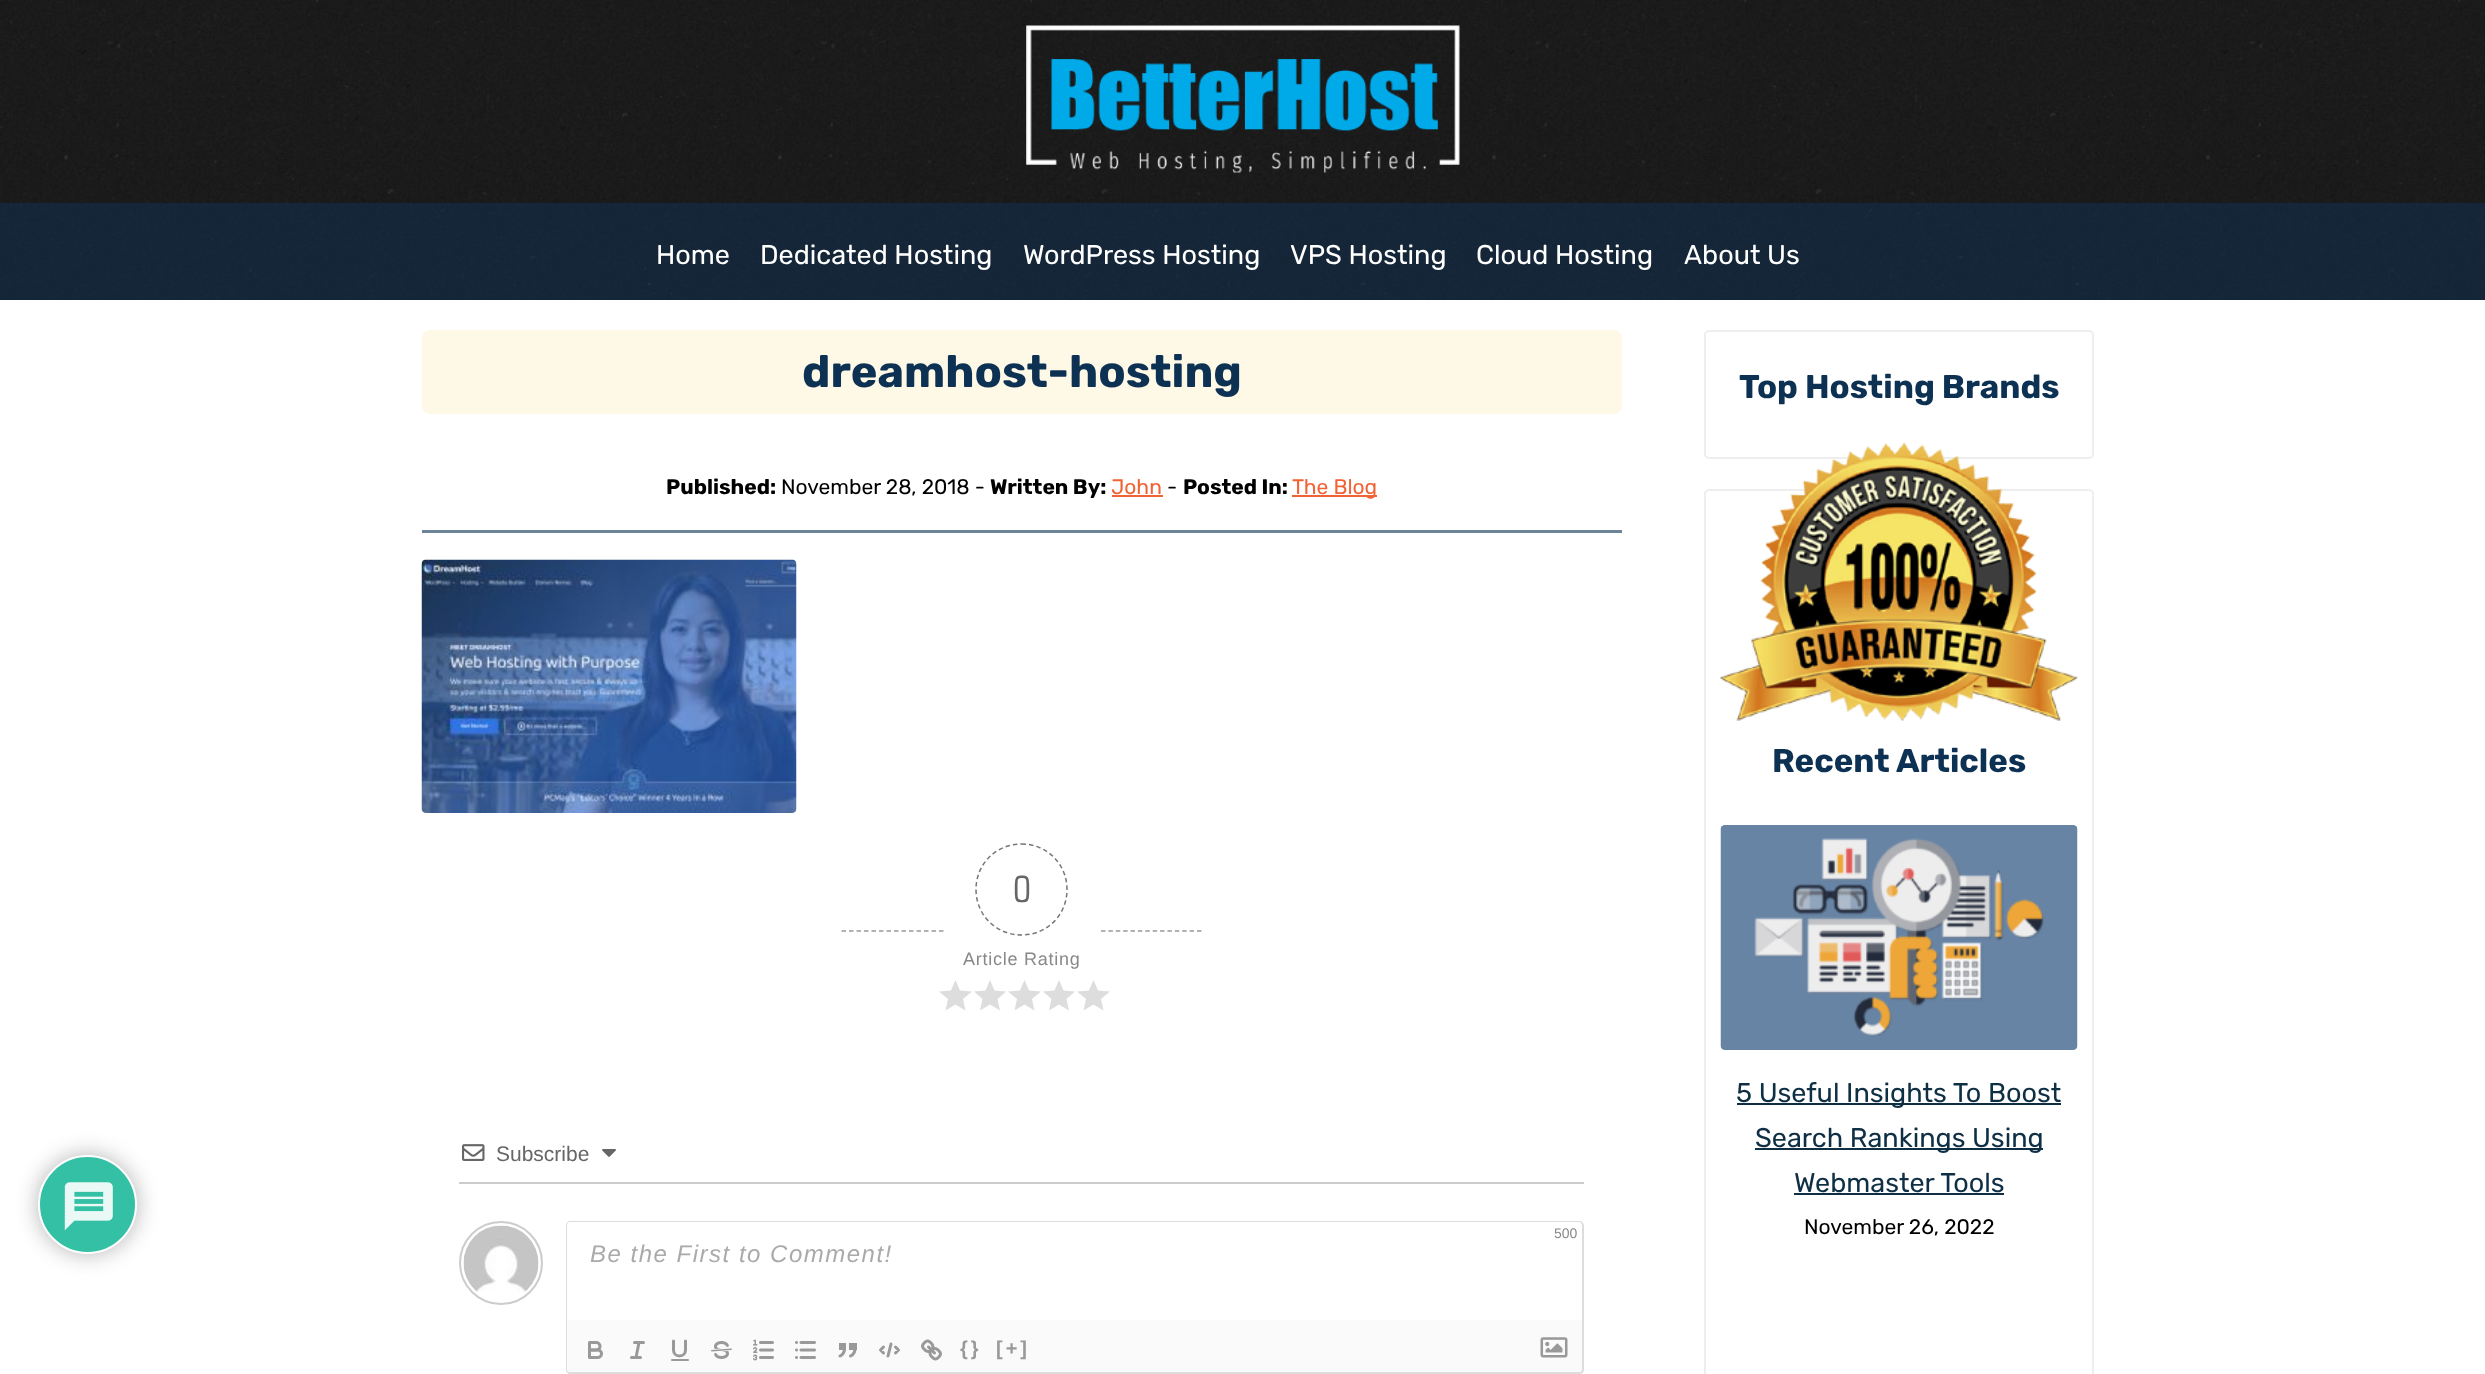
async function draw(canvas) {
  canvas.width = 2485
  canvas.height = 1374
  const ctx = canvas.getContext('2d')
  ctx.miterLimit = 4
  ctx.fontKerning = 'normal'
  async function loadImage(src) {
    const img = new Image()
    img.src = src
    await img.decode()
    return img
  }

  ctx.fillStyle = '#fff'
  ctx.fillRect(0, 0, 2485, 1374)
  ctx.fillStyle = '#000'
  ctx.fillRect(0, 0, 2485, 300)
  ctx.drawImage(await loadImage('image0.png'), 0, 0, 2485, 300)
  ctx.drawImage(await loadImage('image1.png'), 1026, 25, 434, 148)
  ctx.fillStyle = '#0d315380'
  ctx.fillRect(0, 203, 2485, 97)
  ctx.font = '27px Rubik'
  ctx.fillStyle = '#fff'
  ctx.fillText('Home', 656, 264)
  ctx.fillText('Dedicated Hosting', 760, 264)
  ctx.fillText('WordPress Hosting', 1023, 264)
  ctx.fillText('VPS Hosting', 1290, 264)
  ctx.fillText('Cloud Hosting', 1476, 264)
  ctx.fillText('About Us', 1684, 264)
  ctx.fillStyle = '#b3b3b3'
  ctx.filter = 'blur(11px)'
  ctx.beginPath()
  ctx.roundRect(38, 1155, 99, 99, 49.5)
  ctx.fill()
  ctx.filter = 'none'
  ctx.fillStyle = '#34c0a4'
  ctx.beginPath()
  ctx.arc(87.5, 1204.5, 48.5, 0, 2 * Math.PI)
  ctx.fill()
  ctx.strokeStyle = '#fff'
  ctx.lineWidth = 2
  ctx.stroke()
  ctx.drawImage(await loadImage('image2.png'), 64, 1182, 49, 49)
  ctx.fillStyle = '#fef9e7'
  ctx.beginPath()
  ctx.roundRect(422, 330, 1200, 84, 8)
  ctx.fill()
  ctx.font = 'bold 45px Rubik'
  ctx.fillStyle = '#0d3153'
  ctx.fillText('dreamhost-hosting', 802, 387)
  ctx.fillStyle = '#6d8397'
  ctx.fillRect(422, 530, 1200, 3)
  ctx.font = 'bold 21px Rubik'
  ctx.fillStyle = '#000'
  ctx.fillText('Published:', 666, 494)
  ctx.font = '21px Rubik'
  ctx.fillText('November 28, 2018 -', 781, 494)
  ctx.font = 'bold 21px Rubik'
  ctx.fillText('Written By:', 990, 494)
  ctx.font = '21px Rubik'
  ctx.fillStyle = '#f16334'
  ctx.fillText('John', 1111, 494)
  ctx.fillRect(1112, 495, 51, 2)
  ctx.fillStyle = '#000'
  ctx.fillText('-', 1167, 494)
  ctx.font = 'bold 21px Rubik'
  ctx.fillText('Posted In:', 1183, 494)
  ctx.fillStyle = '#f16334'
  ctx.fillRect(1292, 495, 85, 2)
  ctx.font = '21px Rubik'
  ctx.fillText('The Blog', 1292, 494)
  ctx.drawImage(await loadImage('image3.png'), 421, 559, 376, 254)
  ctx.beginPath()
  ctx.moveTo(841.5, 931)
  ctx.lineTo(943.5, 931)
  ctx.strokeStyle = '#999'
  ctx.lineWidth = 1.5
  ctx.setLineDash([4.5, 3])
  ctx.stroke()
  ctx.beginPath()
  ctx.moveTo(1021.5, 844)
  ctx.bezierCurveTo(1047, 844, 1067, 864, 1067, 889.5)
  ctx.bezierCurveTo(1067, 915, 1047, 935, 1021.5, 935)
  ctx.bezierCurveTo(996, 935, 976, 915, 976, 889.5)
  ctx.bezierCurveTo(976, 864, 996, 844, 1021.5, 844)
  ctx.closePath()
  ctx.strokeStyle = '#777'
  ctx.stroke()
  ctx.font = '36px "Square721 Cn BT"'
  ctx.fillStyle = '#666'
  ctx.fillText('0', 1013, 902)
  ctx.letterSpacing = '0.75px'
  ctx.font = '18px Liberation Sans'
  ctx.fillStyle = '#888'
  ctx.fillText('Article Rating', 963, 965)
  ctx.fillStyle = '#ddd'
  ctx.beginPath()
  ctx.moveTo(955.5, 1004.5)
  ctx.lineTo(965.5, 1010.5)
  ctx.lineTo(963, 999)
  ctx.lineTo(972, 991.5)
  ctx.lineTo(960, 990.5)
  ctx.lineTo(955.5, 980)
  ctx.lineTo(951, 990.5)
  ctx.lineTo(939, 991.5)
  ctx.lineTo(948, 999)
  ctx.lineTo(945.5, 1010.5)
  ctx.closePath()
  ctx.fill()
  ctx.beginPath()
  ctx.moveTo(990, 1004.5)
  ctx.lineTo(1000, 1010.5)
  ctx.lineTo(997.5, 999)
  ctx.lineTo(1006, 991.5)
  ctx.lineTo(994.5, 990.5)
  ctx.lineTo(990, 980)
  ctx.lineTo(985.5, 990.5)
  ctx.lineTo(974, 991.5)
  ctx.lineTo(982.5, 999)
  ctx.lineTo(980, 1010.5)
  ctx.closePath()
  ctx.fill()
  ctx.beginPath()
  ctx.moveTo(1024.5, 1004.5)
  ctx.lineTo(1034.5, 1010.5)
  ctx.lineTo(1032, 999)
  ctx.lineTo(1041, 991.5)
  ctx.lineTo(1029, 990.5)
  ctx.lineTo(1024.5, 980)
  ctx.lineTo(1020, 990.5)
  ctx.lineTo(1008, 991.5)
  ctx.lineTo(1017, 999)
  ctx.lineTo(1014.5, 1010.5)
  ctx.closePath()
  ctx.fill()
  ctx.beginPath()
  ctx.moveTo(1059, 1004.5)
  ctx.lineTo(1069, 1010.5)
  ctx.lineTo(1066.5, 999)
  ctx.lineTo(1075, 991.5)
  ctx.lineTo(1063.5, 990.5)
  ctx.lineTo(1059, 980)
  ctx.lineTo(1054.5, 990.5)
  ctx.lineTo(1043, 991.5)
  ctx.lineTo(1051.5, 999)
  ctx.lineTo(1049, 1010.5)
  ctx.closePath()
  ctx.fill()
  ctx.beginPath()
  ctx.moveTo(1093.5, 1004.5)
  ctx.lineTo(1103.5, 1010.5)
  ctx.lineTo(1101, 999)
  ctx.lineTo(1110, 991.5)
  ctx.lineTo(1098, 990.5)
  ctx.lineTo(1093.5, 980)
  ctx.lineTo(1089, 990.5)
  ctx.lineTo(1077, 991.5)
  ctx.lineTo(1086, 999)
  ctx.lineTo(1083.5, 1010.5)
  ctx.closePath()
  ctx.fill()
  ctx.beginPath()
  ctx.moveTo(1101, 931)
  ctx.lineTo(1201.5, 931)
  ctx.strokeStyle = '#999'
  ctx.setLineDash([4.5, 2.88])
  ctx.stroke()
  ctx.fillStyle = '#ccc'
  ctx.fillRect(459, 1182, 1125, 2)
  ctx.drawImage(await loadImage('image4.png'), 462, 1144, 23, 17)
  ctx.letterSpacing = '0px'
  ctx.font = '21px Liberation Sans'
  ctx.fillStyle = '#666'
  ctx.fillText('Subscribe', 496, 1161)
  ctx.drawImage(await loadImage('image5.png'), 602, 1149, 14, 8)
  ctx.beginPath()
  ctx.arc(501, 1263, 41, 0, 2 * Math.PI)
  ctx.strokeStyle = '#ccc'
  ctx.lineWidth = 2
  ctx.setLineDash([])
  ctx.stroke()
  ctx.drawImage(await loadImage('image6.png'), 463, 1225, 76, 67)
  ctx.fillStyle = '#ddd'
  ctx.beginPath()
  ctx.moveTo(570, 1221)
  ctx.lineTo(1580, 1221)
  ctx.bezierCurveTo(1582, 1221, 1584, 1223, 1584, 1226)
  ctx.lineTo(1584, 1320)
  ctx.lineTo(566, 1320)
  ctx.lineTo(566, 1226)
  ctx.bezierCurveTo(566, 1223, 568, 1221, 570, 1221)
  ctx.closePath()
  ctx.moveTo(570, 1222)
  ctx.lineTo(1580, 1222)
  ctx.bezierCurveTo(1581, 1222, 1582, 1224, 1582, 1226)
  ctx.lineTo(1582, 1320)
  ctx.lineTo(567, 1320)
  ctx.lineTo(567, 1226)
  ctx.bezierCurveTo(567, 1224, 568, 1222, 570, 1222)
  ctx.closePath()
  ctx.fill('evenodd')
  ctx.font = '14px Liberation Sans'
  ctx.fillStyle = '#888'
  ctx.fillText('500', 1554, 1238)
  ctx.letterSpacing = '1.5px'
  ctx.font = 'italic 24px Liberation Sans'
  ctx.fillStyle = '#aaa'
  ctx.fillText('Be the First to Comment!', 590, 1262)
  ctx.fillStyle = '#fafafa'
  ctx.beginPath()
  ctx.roundRect(566, 1320, 1018, 54, [0, 0, 5, 5])
  ctx.fill()
  ctx.fillStyle = '#ddd'
  ctx.beginPath()
  ctx.moveTo(566, 1320)
  ctx.lineTo(1584, 1320)
  ctx.lineTo(1584, 1370)
  ctx.bezierCurveTo(1584, 1372, 1582, 1374, 1580, 1374)
  ctx.lineTo(570, 1374)
  ctx.bezierCurveTo(568, 1374, 566, 1372, 566, 1370)
  ctx.closePath()
  ctx.moveTo(567, 1320)
  ctx.lineTo(1582, 1320)
  ctx.lineTo(1582, 1370)
  ctx.bezierCurveTo(1582, 1371, 1581, 1372, 1580, 1372)
  ctx.lineTo(570, 1372)
  ctx.bezierCurveTo(568, 1372, 567, 1371, 567, 1370)
  ctx.closePath()
  ctx.fill('evenodd')
  ctx.drawImage(await loadImage('image7.png'), 588, 1341, 15, 18)
  ctx.beginPath()
  ctx.moveTo(634.5, 1342.5)
  ctx.lineTo(643.5, 1342.5)
  ctx.moveTo(631.5, 1357.5)
  ctx.lineTo(640.5, 1357.5)
  ctx.moveTo(636, 1357.5)
  ctx.lineTo(639, 1342.5)
  ctx.moveTo(673.5, 1341)
  ctx.lineTo(673.5, 1350)
  ctx.bezierCurveTo(673.5, 1353.5, 676, 1356, 679.5, 1356)
  ctx.bezierCurveTo(683, 1356, 685.5, 1353.5, 685.5, 1350)
  ctx.lineTo(685.5, 1341)
  ctx.strokeStyle = '#999'
  ctx.lineWidth = 3
  ctx.lineCap = 'round'
  ctx.lineJoin = 'round'
  ctx.stroke()
  ctx.drawImage(await loadImage('image8.png'), 711, 1341, 21, 18)
  ctx.drawImage(await loadImage('image9.png'), 753, 1339, 21, 22)
  ctx.drawImage(await loadImage('image10.png'), 795, 1341, 21, 18)
  ctx.drawImage(await loadImage('image11.png'), 838, 1343, 19, 15)
  ctx.beginPath()
  ctx.moveTo(883.5, 1347)
  ctx.lineTo(880.5, 1350)
  ctx.lineTo(883.5, 1353)
  ctx.moveTo(895.5, 1347)
  ctx.lineTo(898.5, 1350)
  ctx.lineTo(895.5, 1353)
  ctx.moveTo(891, 1344)
  ctx.lineTo(888, 1356)
  ctx.stroke()
  ctx.drawImage(await loadImage('image12.png'), 921, 1339, 21, 22)
  ctx.letterSpacing = '3px'
  ctx.font = 'bold 20px Liberation Sans'
  ctx.fillStyle = '#999'
  ctx.fillText('{}', 960, 1355)
  ctx.fillText('[+]', 996, 1355)
  ctx.drawImage(await loadImage('image13.png'), 1540, 1337, 28, 21)
  ctx.beginPath()
  ctx.roundRect(671, 1359, 18, 2, 1)
  ctx.fill()
  ctx.beginPath()
  ctx.roundRect(1705, 331, 388, 127, 4)
  ctx.strokeStyle = '#eee'
  ctx.lineWidth = 2
  ctx.lineJoin = 'miter'
  ctx.stroke()
  ctx.letterSpacing = '0px'
  ctx.font = 'bold 33px Rubik'
  ctx.fillStyle = '#0d3153'
  ctx.fillText('Top Hosting Brands', 1739, 398)
  ctx.beginPath()
  ctx.roundRect(1705, 490, 388, 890, 4)
  ctx.stroke()
  ctx.drawImage(await loadImage('image14.png'), 1720, 442, 358, 279)
  ctx.fillText('Recent Articles', 1772, 772)
  ctx.drawImage(await loadImage('image15.png'), 1720, 825, 358, 225)
  ctx.fillStyle = '#0e2f44'
  ctx.fillRect(1737, 1103, 324, 2)
  ctx.font = '27px Rubik'
  ctx.fillText('5 Useful Insights To Boost', 1736, 1102)
  ctx.fillRect(1755, 1148, 288, 2)
  ctx.fillText('Search Rankings Using', 1755, 1147)
  ctx.fillText('Webmaster Tools', 1794, 1192)
  ctx.fillRect(1794, 1193, 210, 2)
  ctx.font = '21px Rubik'
  ctx.fillStyle = '#000'
  ctx.fillText('November 26, 2022', 1804, 1234)
}

draw(document.querySelector('canvas'))
